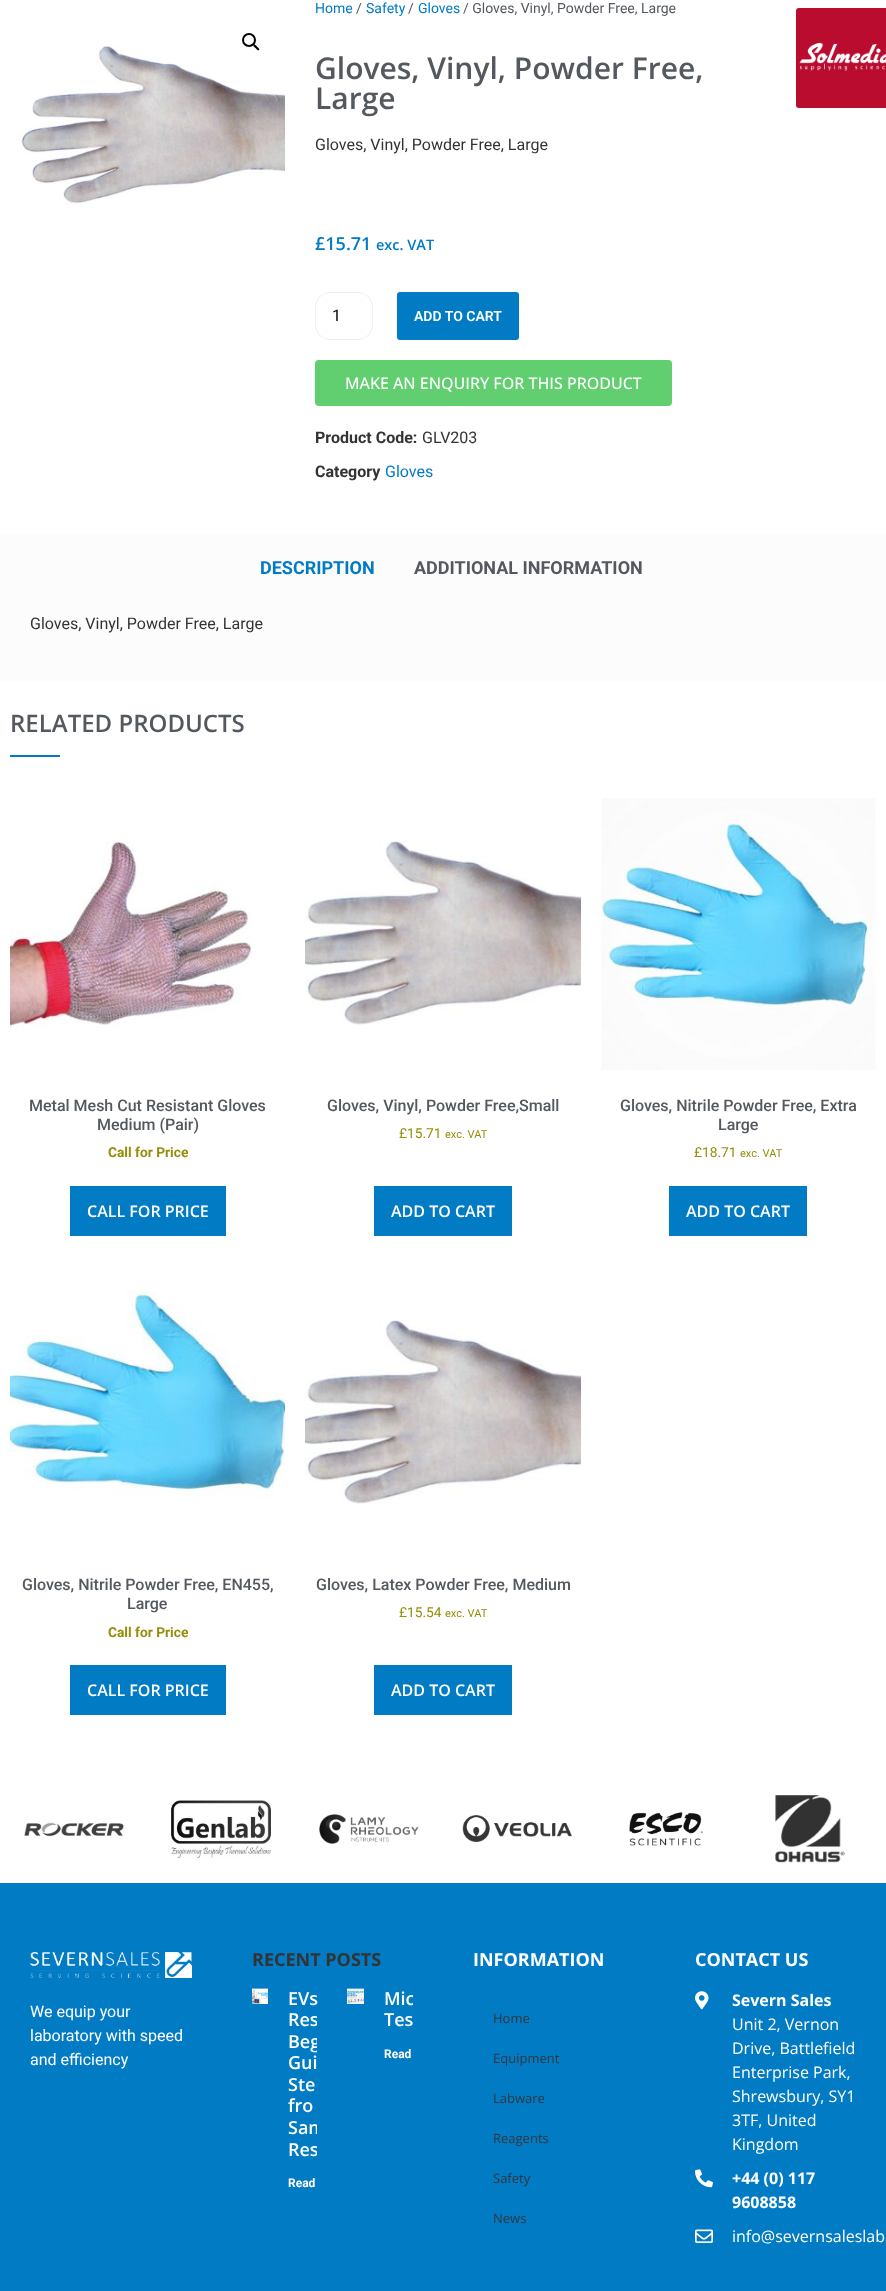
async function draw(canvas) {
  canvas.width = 886
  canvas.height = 2291
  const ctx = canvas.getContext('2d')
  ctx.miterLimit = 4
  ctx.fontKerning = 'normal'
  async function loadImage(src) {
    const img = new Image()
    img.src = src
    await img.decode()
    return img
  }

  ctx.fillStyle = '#fff'
  ctx.fillRect(0, 0, 886, 2291)
  ctx.drawImage(await loadImage('image0.png'), 21, 46, 264, 158)
  ctx.beginPath()
  ctx.arc(249, 40, 6, 0, 2 * Math.PI)
  ctx.strokeStyle = '#000'
  ctx.lineWidth = 2
  ctx.stroke()
  ctx.fillStyle = '#000'
  ctx.beginPath()
  ctx.moveTo(253.5, 44.5)
  ctx.bezierCurveTo(254.5, 43.5, 256.5, 46, 257, 46.5)
  ctx.bezierCurveTo(257.5, 47.5, 260.5, 49, 259, 50)
  ctx.bezierCurveTo(258, 51.5, 256, 48.5, 255.5, 48)
  ctx.bezierCurveTo(255, 47.5, 252.5, 46, 253.5, 44.5)
  ctx.closePath()
  ctx.fill()
  ctx.font = '14px Roboto'
  ctx.fillStyle = '#007bc4'
  ctx.fillText('Home', 315, 13)
  ctx.fillStyle = '#54595f'
  ctx.fillText('/', 356, 13)
  ctx.fillStyle = '#007bc4'
  ctx.fillText('Safety', 366, 13)
  ctx.fillStyle = '#54595f'
  ctx.fillText('/', 408, 13)
  ctx.fillStyle = '#007bc4'
  ctx.fillText('Gloves', 418, 13)
  ctx.fillStyle = '#54595f'
  ctx.fillText('/ Gloves, Vinyl, Powder Free, Large', 463, 13)
  ctx.font = '600 30px Open Sans'
  ctx.fillText('Gloves, Vinyl, Powder Free,', 315, 79)
  ctx.fillText('Large', 315, 109)
  ctx.font = '16px Roboto'
  ctx.fillStyle = '#333'
  ctx.fillText('Gloves, Vinyl, Powder Free, Large', 315, 150)
  ctx.font = '600 18px Open Sans'
  ctx.fillStyle = '#007bc4'
  ctx.fillText('£15.71', 315, 250)
  ctx.font = '600 14.5px Open Sans'
  ctx.fillText('exc. VAT', 376, 250)
  ctx.beginPath()
  ctx.roundRect(315.5, 292.5, 57, 47, 14.5)
  ctx.strokeStyle = '#efefef'
  ctx.lineWidth = 1
  ctx.stroke()
  ctx.font = '16px Roboto'
  ctx.fillStyle = '#000'
  ctx.fillText('1', 332, 321)
  ctx.fillStyle = '#007bc4'
  ctx.beginPath()
  ctx.roundRect(398, 293, 120, 46, 2)
  ctx.fill()
  ctx.strokeStyle = '#007bc4'
  ctx.lineWidth = 2
  ctx.stroke()
  ctx.font = '600 14px Roboto'
  ctx.fillStyle = '#fff'
  ctx.fillText('ADD TO CART', 414, 321)
  ctx.fillStyle = '#61ce70'
  ctx.beginPath()
  ctx.roundRect(315, 360, 357, 46, 4)
  ctx.fill()
  ctx.font = '500 16px Open Sans'
  ctx.fillStyle = '#fff'
  ctx.fillText('MAKE AN ENQUIRY FOR THIS PRODUCT', 345, 389)
  ctx.font = 'bold 16px Roboto'
  ctx.fillStyle = '#333'
  ctx.fillText('Product Code:', 315, 443)
  ctx.font = '16px Roboto'
  ctx.fillText('GLV203', 422, 443)
  ctx.font = 'bold 16px Roboto'
  ctx.fillText('Category', 315, 477)
  ctx.font = '16px Roboto'
  ctx.fillStyle = '#007bc4'
  ctx.fillText('Gloves', 385, 477)
  ctx.drawImage(await loadImage('image1.png'), 796, 8, 90, 100)
  ctx.fillStyle = '#fcfcfc'
  ctx.fillRect(0, 534, 886, 147)
  ctx.font = 'bold 18px Roboto'
  ctx.fillStyle = '#007bc4'
  ctx.fillText('DESCRIPTION', 260, 574)
  ctx.fillStyle = '#54595f'
  ctx.fillText('ADDITIONAL INFORMATION', 414, 574)
  ctx.font = '16px Roboto'
  ctx.fillStyle = '#333'
  ctx.fillText('Gloves, Vinyl, Powder Free, Large', 30, 629)
  ctx.font = '600 24px Open Sans'
  ctx.fillStyle = '#54595f'
  ctx.fillText('RELATED PRODUCTS', 10, 732)
  ctx.fillStyle = '#007bc4'
  ctx.fillRect(10, 755, 50, 2)
  ctx.drawImage(await loadImage('image2.png'), 10, 841, 242, 189)
  ctx.font = '500 16px Roboto'
  ctx.fillStyle = '#54595f'
  ctx.fillText('Metal Mesh Cut Resistant Gloves', 29, 1111)
  ctx.fillText('Medium (Pair)', 97, 1130)
  ctx.font = 'bold 13.75px Roboto'
  ctx.fillStyle = '#958e09'
  ctx.fillText('Call for Price', 108, 1157)
  ctx.fillStyle = '#007bc4'
  ctx.fillRect(70, 1186, 156, 50)
  ctx.font = '600 16px Open Sans'
  ctx.fillStyle = '#fff'
  ctx.fillText('CALL FOR PRICE', 87, 1217)
  ctx.drawImage(await loadImage('image3.png'), 305, 841, 276, 184)
  ctx.font = '500 16px Roboto'
  ctx.fillStyle = '#54595f'
  ctx.fillText('Gloves, Vinyl, Powder Free,Small', 327, 1111)
  ctx.font = '13.75px Roboto'
  ctx.fillStyle = '#958e09'
  ctx.fillText('£15.71', 399, 1138)
  ctx.font = '11px Roboto'
  ctx.fillText('exc. VAT', 445, 1138)
  ctx.fillStyle = '#007bc4'
  ctx.fillRect(374, 1186, 138, 50)
  ctx.font = '600 16px Open Sans'
  ctx.fillStyle = '#fff'
  ctx.fillText('ADD TO CART', 391, 1217)
  ctx.drawImage(await loadImage('image4.png'), 601, 798, 275, 272)
  ctx.font = '500 16px Roboto'
  ctx.fillStyle = '#54595f'
  ctx.fillText('Gloves, Nitrile Powder Free, Extra', 620, 1111)
  ctx.fillText('Large', 718, 1130)
  ctx.font = '13.75px Roboto'
  ctx.fillStyle = '#958e09'
  ctx.fillText('£18.71', 694, 1157)
  ctx.font = '11px Roboto'
  ctx.fillText('exc. VAT', 740, 1157)
  ctx.fillStyle = '#007bc4'
  ctx.fillRect(669, 1186, 138, 50)
  ctx.font = '600 16px Open Sans'
  ctx.fillStyle = '#fff'
  ctx.fillText('ADD TO CART', 686, 1217)
  ctx.drawImage(await loadImage('image5.png'), 10, 1290, 275, 206)
  ctx.font = '500 16px Roboto'
  ctx.fillStyle = '#54595f'
  ctx.fillText('Gloves, Nitrile Powder Free, EN455,', 22, 1590)
  ctx.fillText('Large', 127, 1609)
  ctx.font = 'bold 13.75px Roboto'
  ctx.fillStyle = '#958e09'
  ctx.fillText('Call for Price', 108, 1637)
  ctx.fillStyle = '#007bc4'
  ctx.fillRect(70, 1665, 156, 50)
  ctx.font = '600 16px Open Sans'
  ctx.fillStyle = '#fff'
  ctx.fillText('CALL FOR PRICE', 87, 1696)
  ctx.drawImage(await loadImage('image3.png'), 305, 1320, 276, 184)
  ctx.font = '500 16px Roboto'
  ctx.fillStyle = '#54595f'
  ctx.fillText('Gloves, Latex Powder Free, Medium', 316, 1590)
  ctx.font = '13.75px Roboto'
  ctx.fillStyle = '#958e09'
  ctx.fillText('£15.54', 399, 1617)
  ctx.font = '11px Roboto'
  ctx.fillText('exc. VAT', 445, 1617)
  ctx.fillStyle = '#007bc4'
  ctx.fillRect(374, 1665, 138, 50)
  ctx.font = '600 16px Open Sans'
  ctx.fillStyle = '#fff'
  ctx.fillText('ADD TO CART', 391, 1696)
  ctx.drawImage(await loadImage('image6.png'), 24, 1822, 100, 15)
  ctx.drawImage(await loadImage('image7.png'), 171, 1800, 100, 58)
  ctx.drawImage(await loadImage('image8.png'), 319, 1814, 100, 30)
  ctx.drawImage(await loadImage('image9.png'), 462, 1815, 110, 27)
  ctx.drawImage(await loadImage('image10.png'), 629, 1812, 74, 34)
  ctx.drawImage(await loadImage('image11.png'), 775, 1795, 70, 68)
  ctx.fillStyle = '#007bc4'
  ctx.fillRect(0, 1883, 886, 408)
  ctx.drawImage(await loadImage('image12.png'), 30, 1952, 162, 26)
  ctx.font = '16px Roboto'
  ctx.fillStyle = '#fff'
  ctx.fillText('We equip your', 30, 2017)
  ctx.fillText('laboratory with speed', 30, 2041)
  ctx.fillText('and efficiency', 30, 2065)
  ctx.font = 'bold 18px Open Sans'
  ctx.fillStyle = '#333'
  ctx.fillText('RECENT POSTS', 252, 1966)
  ctx.drawImage(await loadImage('image13.png'), 252, 1988, 16, 16)
  ctx.font = '600 18px Open Sans'
  ctx.fillStyle = '#fff'
  ctx.fillText('EVs', 288, 2005)
  ctx.save()
  ctx.beginPath()
  ctx.rect(252, 1988, 65, 206)
  ctx.clip()
  ctx.fillText('Res', 288, 2026)
  ctx.fillText('Beg', 288, 2048)
  ctx.restore()
  ctx.fillText('Gui', 288, 2069)
  ctx.fillText('Ste', 288, 2091)
  ctx.fillText('fro', 288, 2112)
  ctx.save()
  ctx.beginPath()
  ctx.rect(252, 1988, 65, 206)
  ctx.clip()
  ctx.fillText('Sam', 288, 2134)
  ctx.fillText('Res', 288, 2156)
  ctx.restore()
  ctx.font = 'bold 12px Roboto'
  ctx.fillText('Read', 288, 2187)
  ctx.drawImage(await loadImage('image14.png'), 347, 1988, 17, 16)
  ctx.save()
  ctx.beginPath()
  ctx.rect(347, 1988, 66, 206)
  ctx.clip()
  ctx.font = '600 18px Open Sans'
  ctx.fillText('Mic', 384, 2005)
  ctx.restore()
  ctx.font = '600 18px Open Sans'
  ctx.fillText('Tes', 384, 2026)
  ctx.font = 'bold 12px Roboto'
  ctx.fillText('Read', 384, 2058)
  ctx.font = 'bold 18px Open Sans'
  ctx.fillText('INFORMATION', 473, 1966)
  ctx.font = '13px Open Sans'
  ctx.fillStyle = '#33373d'
  ctx.fillText('Home', 493, 2023)
  ctx.fillText('Equipment', 493, 2063)
  ctx.fillText('Labware', 493, 2103)
  ctx.fillText('Reagents', 493, 2143)
  ctx.fillText('Safety', 493, 2183)
  ctx.fillText('News', 493, 2223)
  ctx.font = 'bold 18px Open Sans'
  ctx.fillStyle = '#fff'
  ctx.fillText('CONTACT US', 695, 1966)
  ctx.drawImage(await loadImage('image15.png'), 695, 1991, 14, 19)
  ctx.font = 'bold 16px Open Sans'
  ctx.fillText('Severn Sales', 732, 2006)
  ctx.font = '16px Open Sans'
  ctx.fillText('Unit 2, Vernon', 732, 2030)
  ctx.fillText('Drive, Battlefield', 732, 2054)
  ctx.fillText('Enterprise Park,', 732, 2078)
  ctx.fillText('Shrewsbury, SY1', 732, 2102)
  ctx.fillText('3TF, United', 732, 2126)
  ctx.fillText('Kingdom', 732, 2150)
  ctx.drawImage(await loadImage('image16.png'), 695, 2169, 18, 19)
  ctx.font = 'bold 16px Open Sans'
  ctx.fillText('+44 (0) 117', 732, 2184)
  ctx.fillText('9608858', 732, 2208)
  ctx.drawImage(await loadImage('image17.png'), 695, 2229, 18, 14)
  ctx.font = '16px Open Sans'
  ctx.fillText('info@severnsaleslab', 732, 2242)
}

draw(document.querySelector('canvas'))
